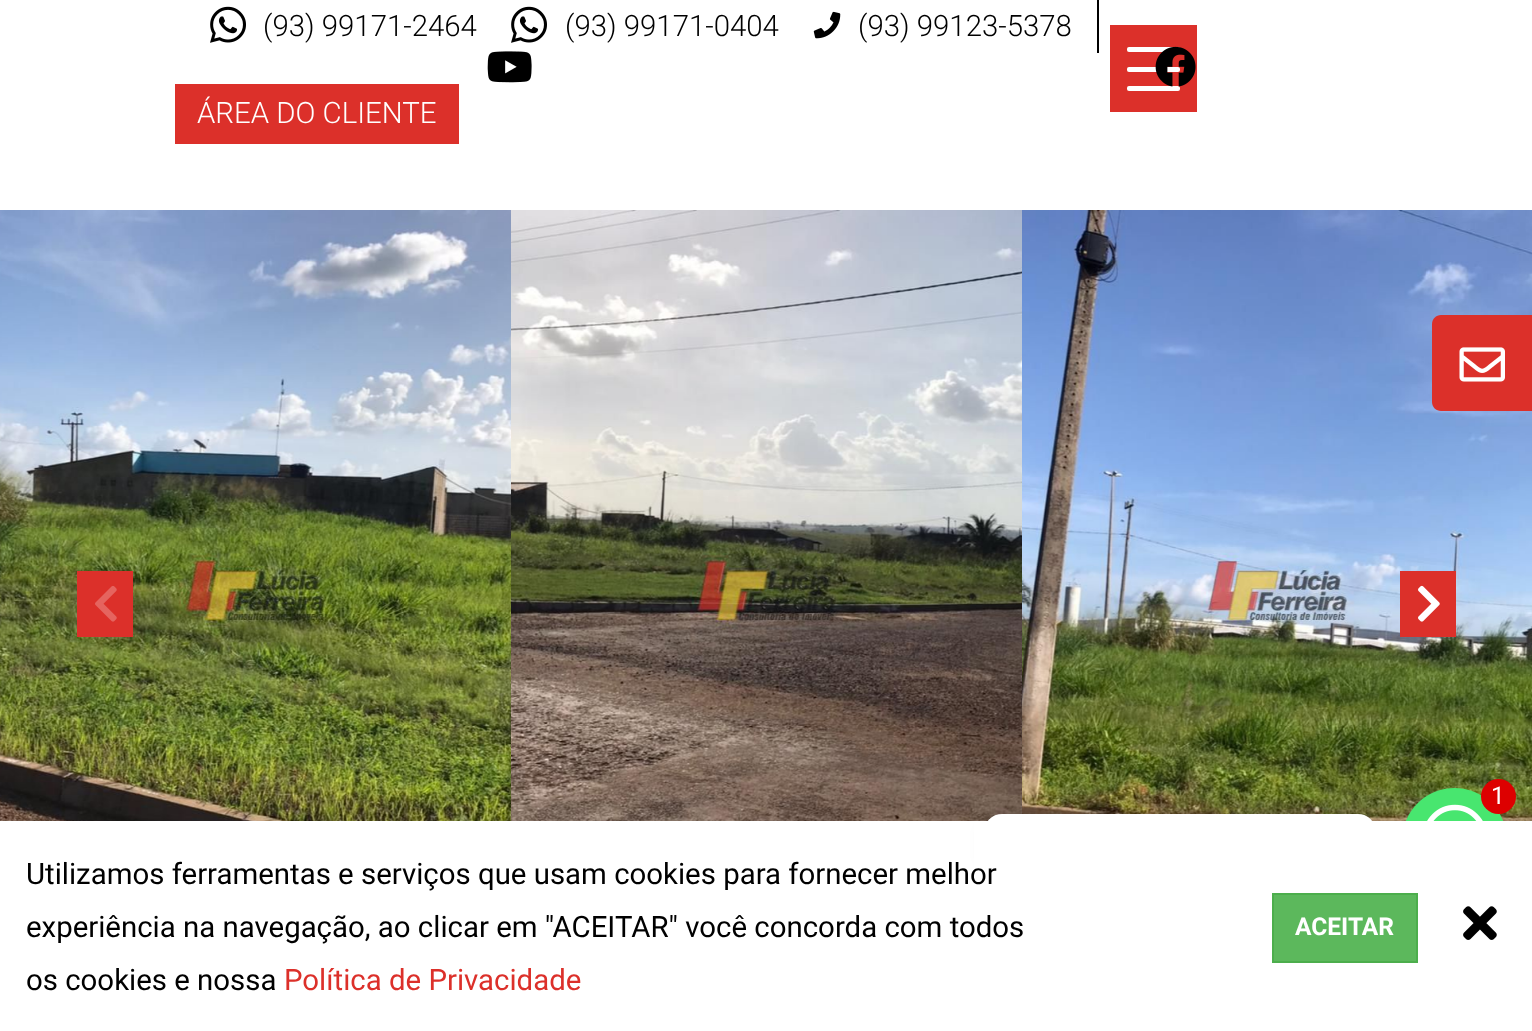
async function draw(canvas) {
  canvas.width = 1532
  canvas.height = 1031
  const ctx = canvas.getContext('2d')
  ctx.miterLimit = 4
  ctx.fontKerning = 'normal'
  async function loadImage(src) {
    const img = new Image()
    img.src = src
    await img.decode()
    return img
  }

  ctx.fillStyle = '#fff'
  ctx.fillRect(0, 0, 1532, 1031)
  ctx.drawImage(await loadImage('image0.png'), 210, 6, 36, 37)
  ctx.font = '300 29.4px Roboto'
  ctx.fillStyle = '#000'
  ctx.fillText('(93) 99171-2464', 263, 36)
  ctx.drawImage(await loadImage('image0.png'), 511, 6, 36, 37)
  ctx.fillText('(93) 99171-0404', 565, 36)
  ctx.drawImage(await loadImage('image1.png'), 813, 11, 28, 28)
  ctx.fillText('(93) 99123-5378', 858, 36)
  ctx.fillRect(1097, 0, 2, 53)
  ctx.drawImage(await loadImage('image2.png'), 487, 51, 45, 32)
  ctx.fillStyle = '#dc302a'
  ctx.fillRect(1110, 25, 87, 87)
  ctx.fillStyle = '#fff'
  ctx.beginPath()
  ctx.roundRect(1127, 47, 53, 5, 2)
  ctx.fill()
  ctx.beginPath()
  ctx.roundRect(1127, 67, 53, 5, 2)
  ctx.fill()
  ctx.beginPath()
  ctx.roundRect(1127, 86, 53, 5, 2)
  ctx.fill()
  ctx.drawImage(await loadImage('image3.png'), 1155, 46, 41, 41)
  ctx.fillStyle = '#dc302a'
  ctx.fillRect(175, 84, 284, 60)
  ctx.fillStyle = '#fff'
  ctx.fillText('ÁREA DO CLIENTE', 197, 123)
  ctx.drawImage(await loadImage('image4.png'), 0, 210, 511, 611)
  ctx.drawImage(await loadImage('image5.png'), 511, 210, 511, 611)
  ctx.drawImage(await loadImage('image6.png'), 1022, 210, 510, 611)
  ctx.fillStyle = '#dc302a'
  ctx.fillRect(77, 571, 56, 66)
  ctx.drawImage(await loadImage('image7.png'), 95, 586, 22, 36)
  ctx.fillRect(1400, 571, 56, 66)
  ctx.drawImage(await loadImage('image8.png'), 1418, 585, 22, 37)
  ctx.fillStyle = '#00000026'
  ctx.filter = 'blur(7px)'
  ctx.beginPath()
  ctx.roundRect(984, 817, 392, 55, 18)
  ctx.fill()
  ctx.filter = 'none'
  ctx.fillStyle = '#fff'
  ctx.beginPath()
  ctx.roundRect(984, 814, 392, 54, 18)
  ctx.fill()
  ctx.fillStyle = '#48e66f'
  ctx.beginPath()
  ctx.arc(1454.5, 840.5, 52.5, 0, 2 * Math.PI)
  ctx.fill()
  ctx.fillStyle = '#fff'
  ctx.fillRect(974, 821, 533, 72)
  ctx.font = '29.4px Roboto'
  ctx.fillStyle = '#000'
  ctx.fillText('Utilizamos ferramentas e serviços que usam cookies para fornecer melhor', 26, 884)
  ctx.fillText('experiência na navegação, ao clicar em "ACEITAR" você concorda com todos', 26, 937)
  ctx.fillText('os cookies e nossa', 26, 990)
  ctx.fillStyle = '#dc302a'
  ctx.fillText('Política de Privacidade', 284, 990)
  ctx.fillStyle = '#5cb85c'
  ctx.beginPath()
  ctx.rect(1273, 894, 144, 68)
  ctx.fill()
  ctx.strokeStyle = '#4cae4c'
  ctx.lineWidth = 2
  ctx.stroke()
  ctx.font = 'bold 24.5px Roboto'
  ctx.fillStyle = '#fff'
  ctx.fillText('ACEITAR', 1295, 935)
  ctx.drawImage(await loadImage('image9.png'), 1463, 906, 34, 34)
  ctx.fillStyle = '#dc302a'
  ctx.beginPath()
  ctx.moveTo(1441, 315)
  ctx.lineTo(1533, 315)
  ctx.lineTo(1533, 411)
  ctx.lineTo(1441, 411)
  ctx.bezierCurveTo(1436, 411, 1432, 407, 1432, 402)
  ctx.lineTo(1432, 324)
  ctx.bezierCurveTo(1432, 319, 1436, 315, 1441, 315)
  ctx.closePath()
  ctx.fill()
  ctx.drawImage(await loadImage('image10.png'), 1459, 347, 46, 35)
  ctx.drawImage(await loadImage('image11.png'), 1427, 804, 56, 17)
  ctx.fillStyle = '#d00'
  ctx.beginPath()
  ctx.arc(1498.5, 796.5, 17.5, 0, 2 * Math.PI)
  ctx.fill()
  ctx.font = '24.5px Roboto'
  ctx.fillStyle = '#fff'
  ctx.fillText('1', 1491, 804)
}

draw(document.querySelector('canvas'))
